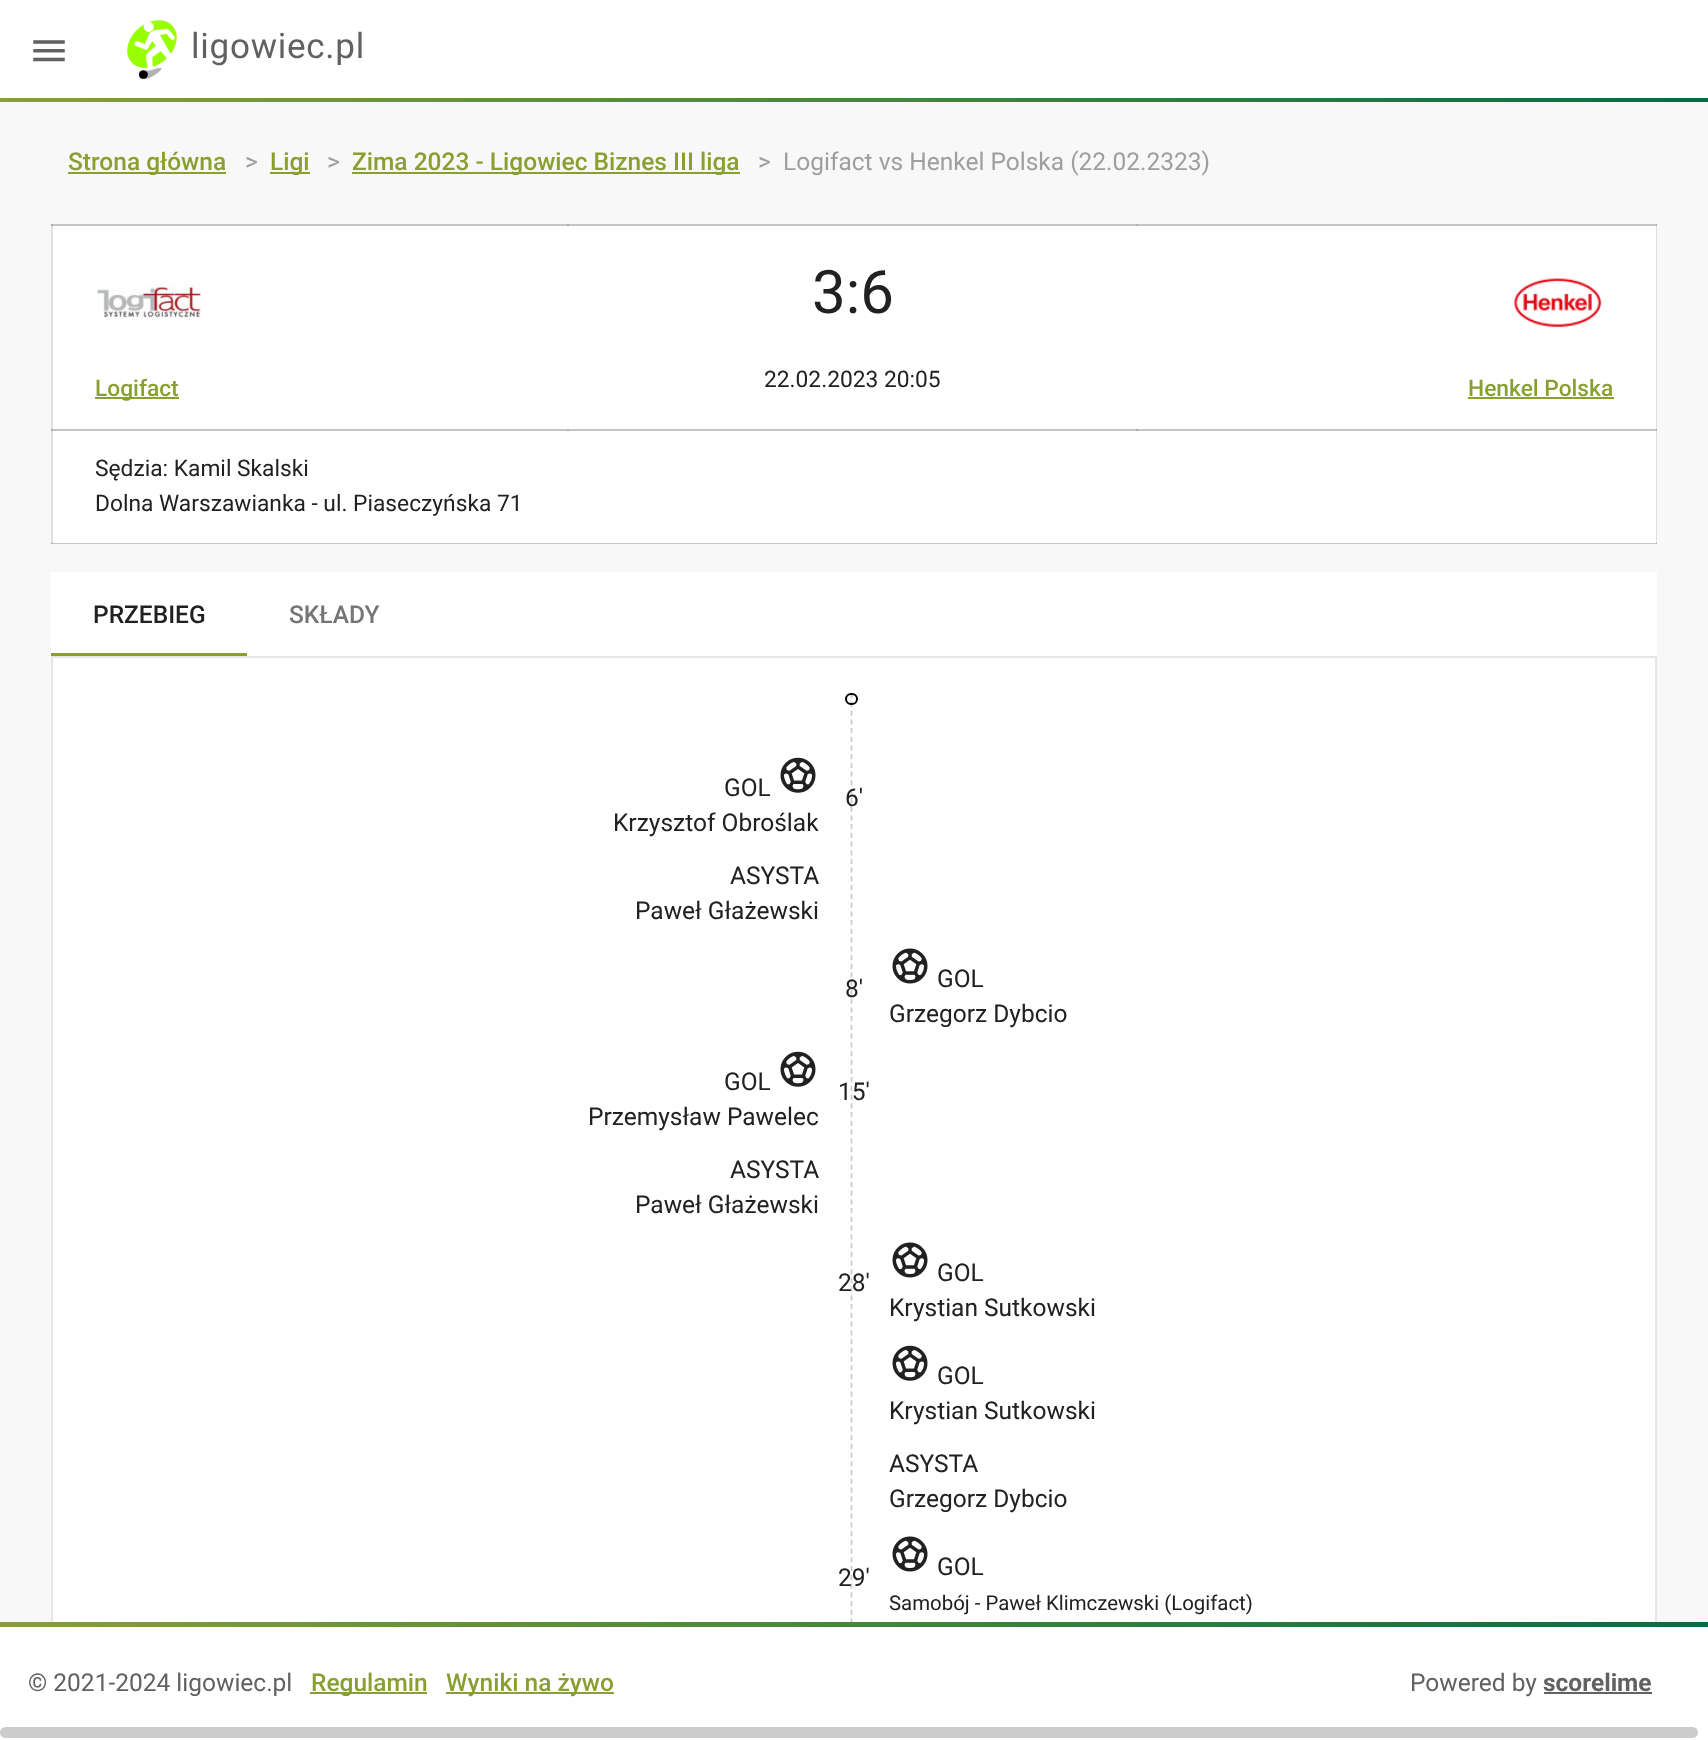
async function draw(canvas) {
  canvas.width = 1708
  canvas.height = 1740
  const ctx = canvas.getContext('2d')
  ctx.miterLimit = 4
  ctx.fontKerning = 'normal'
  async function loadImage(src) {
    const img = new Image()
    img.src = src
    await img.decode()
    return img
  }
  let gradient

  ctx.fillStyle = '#f8f8f8'
  ctx.fillRect(0, 0, 1708, 1740)
  ctx.fillStyle = '#fff'
  ctx.fillRect(0, 0, 1708, 98)
  ctx.drawImage(await loadImage('image0.png'), 33, 40, 32, 22)
  ctx.drawImage(await loadImage('image1.png'), 126, 20, 51, 60)
  ctx.letterSpacing = '0.75px'
  ctx.font = '35px Roboto'
  ctx.fillStyle = '#616161'
  ctx.fillText('ligowiec.pl', 191, 58)
  gradient = ctx.createLinearGradient(0, 100, 1708, 100)
  gradient.addColorStop(0, '#8a9f32')
  gradient.addColorStop(1, '#006f44')
  ctx.fillStyle = gradient
  ctx.fillRect(0, 98, 1708, 4)
  ctx.fillStyle = '#8a9f32'
  ctx.fillRect(68, 172, 158, 2)
  ctx.letterSpacing = '0px'
  ctx.font = '500 24.5px Roboto'
  ctx.fillText('Strona główna', 68, 170)
  ctx.font = '24.5px Roboto'
  ctx.fillStyle = '#9e9e9e'
  ctx.fillText('>', 245, 170)
  ctx.fillStyle = '#8a9f32'
  ctx.fillRect(270, 172, 40, 2)
  ctx.font = '500 24.5px Roboto'
  ctx.fillText('Ligi', 270, 170)
  ctx.font = '24.5px Roboto'
  ctx.fillStyle = '#9e9e9e'
  ctx.fillText('>', 327, 170)
  ctx.fillStyle = '#8a9f32'
  ctx.fillRect(352, 172, 388, 2)
  ctx.font = '500 24.5px Roboto'
  ctx.fillText('Zima 2023 - Ligowiec Biznes III liga', 352, 170)
  ctx.font = '24.5px Roboto'
  ctx.fillStyle = '#9e9e9e'
  ctx.fillText('>', 758, 170)
  ctx.fillText('Logifact vs Henkel Polska (22.02.2323)', 783, 170)
  ctx.fillStyle = '#fff'
  ctx.fillRect(53, 226, 1603, 317)
  ctx.fillStyle = '#c5c5c5'
  ctx.fillRect(51, 429, 1606, 2)
  ctx.fillStyle = '#adadad'
  ctx.fillRect(567, 429, 2, 2)
  ctx.fillRect(1136, 429, 2, 2)
  ctx.fillStyle = '#e0e0e0'
  ctx.fillRect(51, 224, 2, 320)
  ctx.fillStyle = '#adadad'
  ctx.fillRect(51, 429, 2, 2)
  ctx.fillStyle = '#c5c5c5'
  ctx.fillRect(51, 543, 1606, 1)
  ctx.fillStyle = '#adadad'
  ctx.fillRect(51, 543, 2, 1)
  ctx.fillStyle = '#e0e0e0'
  ctx.fillRect(1656, 224, 1, 320)
  ctx.fillStyle = '#adadad'
  ctx.fillRect(1656, 429, 1, 2)
  ctx.fillRect(1656, 543, 1, 1)
  ctx.fillStyle = '#c5c5c5'
  ctx.fillRect(51, 224, 1606, 2)
  ctx.fillStyle = '#adadad'
  ctx.fillRect(567, 224, 2, 2)
  ctx.fillRect(1136, 224, 2, 2)
  ctx.fillRect(51, 224, 2, 2)
  ctx.fillRect(1656, 224, 1, 2)
  ctx.drawImage(await loadImage('image2.png'), 97, 283, 105, 36)
  ctx.fillStyle = '#8a9f32'
  ctx.fillRect(95, 397, 84, 2)
  ctx.font = '500 22.75px Roboto'
  ctx.fillText('Logifact', 95, 396)
  ctx.font = '60px Roboto'
  ctx.fillStyle = '#212121'
  ctx.fillText('3:6', 812, 313)
  ctx.font = '22.75px Roboto'
  ctx.fillText('22.02.2023 20:05', 764, 387)
  ctx.drawImage(await loadImage('image3.png'), 1513, 278, 89, 50)
  ctx.font = '500 22.75px Roboto'
  ctx.fillStyle = '#8a9f32'
  ctx.fillText('Henkel Polska', 1468, 396)
  ctx.fillRect(1468, 397, 146, 2)
  ctx.font = '22.75px Roboto'
  ctx.fillStyle = '#212121'
  ctx.fillText('Sędzia: Kamil Skalski', 95, 476)
  ctx.fillText('Dolna Warszawianka - ul. Piaseczyńska 71', 95, 511)
  ctx.fillStyle = '#fff'
  ctx.fillRect(51, 572, 1606, 84)
  ctx.font = '500 24.5px Roboto'
  ctx.fillStyle = '#212121'
  ctx.fillText('PRZEBIEG', 93, 623)
  ctx.fillStyle = '#8a9f32'
  ctx.fillRect(51, 653, 196, 3)
  ctx.fillStyle = '#757575'
  ctx.fillText('SKŁADY', 289, 623)
  ctx.fillStyle = '#fff'
  ctx.fillRect(53, 658, 1602, 964)
  ctx.fillRect(0, 1627, 1708, 113)
  ctx.font = '24.5px Roboto'
  ctx.fillStyle = '#616161'
  ctx.fillText('© 2021-2024 ligowiec.pl', 28, 1691)
  ctx.fillStyle = '#8a9f32'
  ctx.fillRect(310, 1692, 117, 2)
  ctx.fillRect(446, 1692, 168, 2)
  ctx.fillStyle = '#616161'
  ctx.fillRect(1544, 1692, 108, 2)
  ctx.fillStyle = '#ccc'
  ctx.beginPath()
  ctx.roundRect(0, 1727, 1698, 11, 5.5)
  ctx.fill()
  ctx.save()
  ctx.beginPath()
  ctx.rect(0, 98, 1708, 1524)
  ctx.clip()
  ctx.strokeStyle = '#e6e6e6'
  ctx.lineWidth = 2
  ctx.strokeRect(52, 657, 1604, 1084)
  ctx.restore()
  ctx.fillStyle = '#212121'
  ctx.fillText('6\'', 845, 806)
  ctx.fillText('8\'', 845, 997)
  ctx.fillText('15\'', 838, 1100)
  ctx.fillText('28\'', 838, 1291)
  ctx.fillText('29\'', 838, 1586)
  ctx.save()
  ctx.beginPath()
  ctx.rect(0, 98, 1708, 1524)
  ctx.clip()
  ctx.beginPath()
  ctx.moveTo(851.5, 693)
  ctx.lineTo(851.5, 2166.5)
  ctx.strokeStyle = '#00000033'
  ctx.lineWidth = 1.8
  ctx.setLineDash([5.25, 3.48])
  ctx.stroke()
  ctx.restore()
  ctx.beginPath()
  ctx.roundRect(846, 694, 11, 10, 5)
  ctx.strokeStyle = '#000'
  ctx.lineWidth = 2
  ctx.stroke()
  ctx.fillText('GOL', 724, 796)
  ctx.drawImage(await loadImage('image4.png'), 780, 757, 36, 36)
  ctx.fillText('Krzysztof Obroślak', 613, 831)
  ctx.fillText('ASYSTA', 730, 884)
  ctx.fillText('Paweł Głażewski', 635, 919)
  ctx.drawImage(await loadImage('image5.png'), 892, 948, 36, 36)
  ctx.fillText('GOL', 937, 987)
  ctx.fillText('Grzegorz Dybcio', 889, 1022)
  ctx.fillText('GOL', 724, 1090)
  ctx.drawImage(await loadImage('image4.png'), 780, 1051, 36, 36)
  ctx.fillText('Przemysław Pawelec', 588, 1125)
  ctx.fillText('ASYSTA', 730, 1178)
  ctx.fillText('Paweł Głażewski', 635, 1213)
  ctx.drawImage(await loadImage('image5.png'), 892, 1242, 36, 36)
  ctx.fillText('GOL', 937, 1281)
  ctx.fillText('Krystian Sutkowski', 889, 1316)
  ctx.drawImage(await loadImage('image4.png'), 892, 1345, 36, 36)
  ctx.fillText('GOL', 937, 1384)
  ctx.fillText('Krystian Sutkowski', 889, 1419)
  ctx.fillText('ASYSTA', 889, 1472)
  ctx.fillText('Grzegorz Dybcio', 889, 1507)
  ctx.drawImage(await loadImage('image5.png'), 892, 1536, 36, 36)
  ctx.fillText('GOL', 937, 1575)
  ctx.font = '20.4px Roboto'
  ctx.fillText('Samobój - Paweł Klimczewski (Logifact)', 889, 1610)
  gradient = ctx.createLinearGradient(0, 1625, 1708, 1625)
  gradient.addColorStop(0, '#8a9f32')
  gradient.addColorStop(1, '#006f44')
  ctx.fillStyle = gradient
  ctx.fillRect(0, 1622, 1708, 5)
  ctx.font = '500 24.5px Roboto'
  ctx.fillStyle = '#8a9f32'
  ctx.fillText('Regulamin', 311, 1691)
  ctx.fillText('Wyniki na żywo', 446, 1691)
  ctx.font = '24.5px Roboto'
  ctx.fillStyle = '#616161'
  ctx.fillText('Powered by', 1410, 1691)
  ctx.font = 'bold 24.5px Roboto'
  ctx.fillText('scorelime', 1543, 1691)
}

draw(document.querySelector('canvas'))
